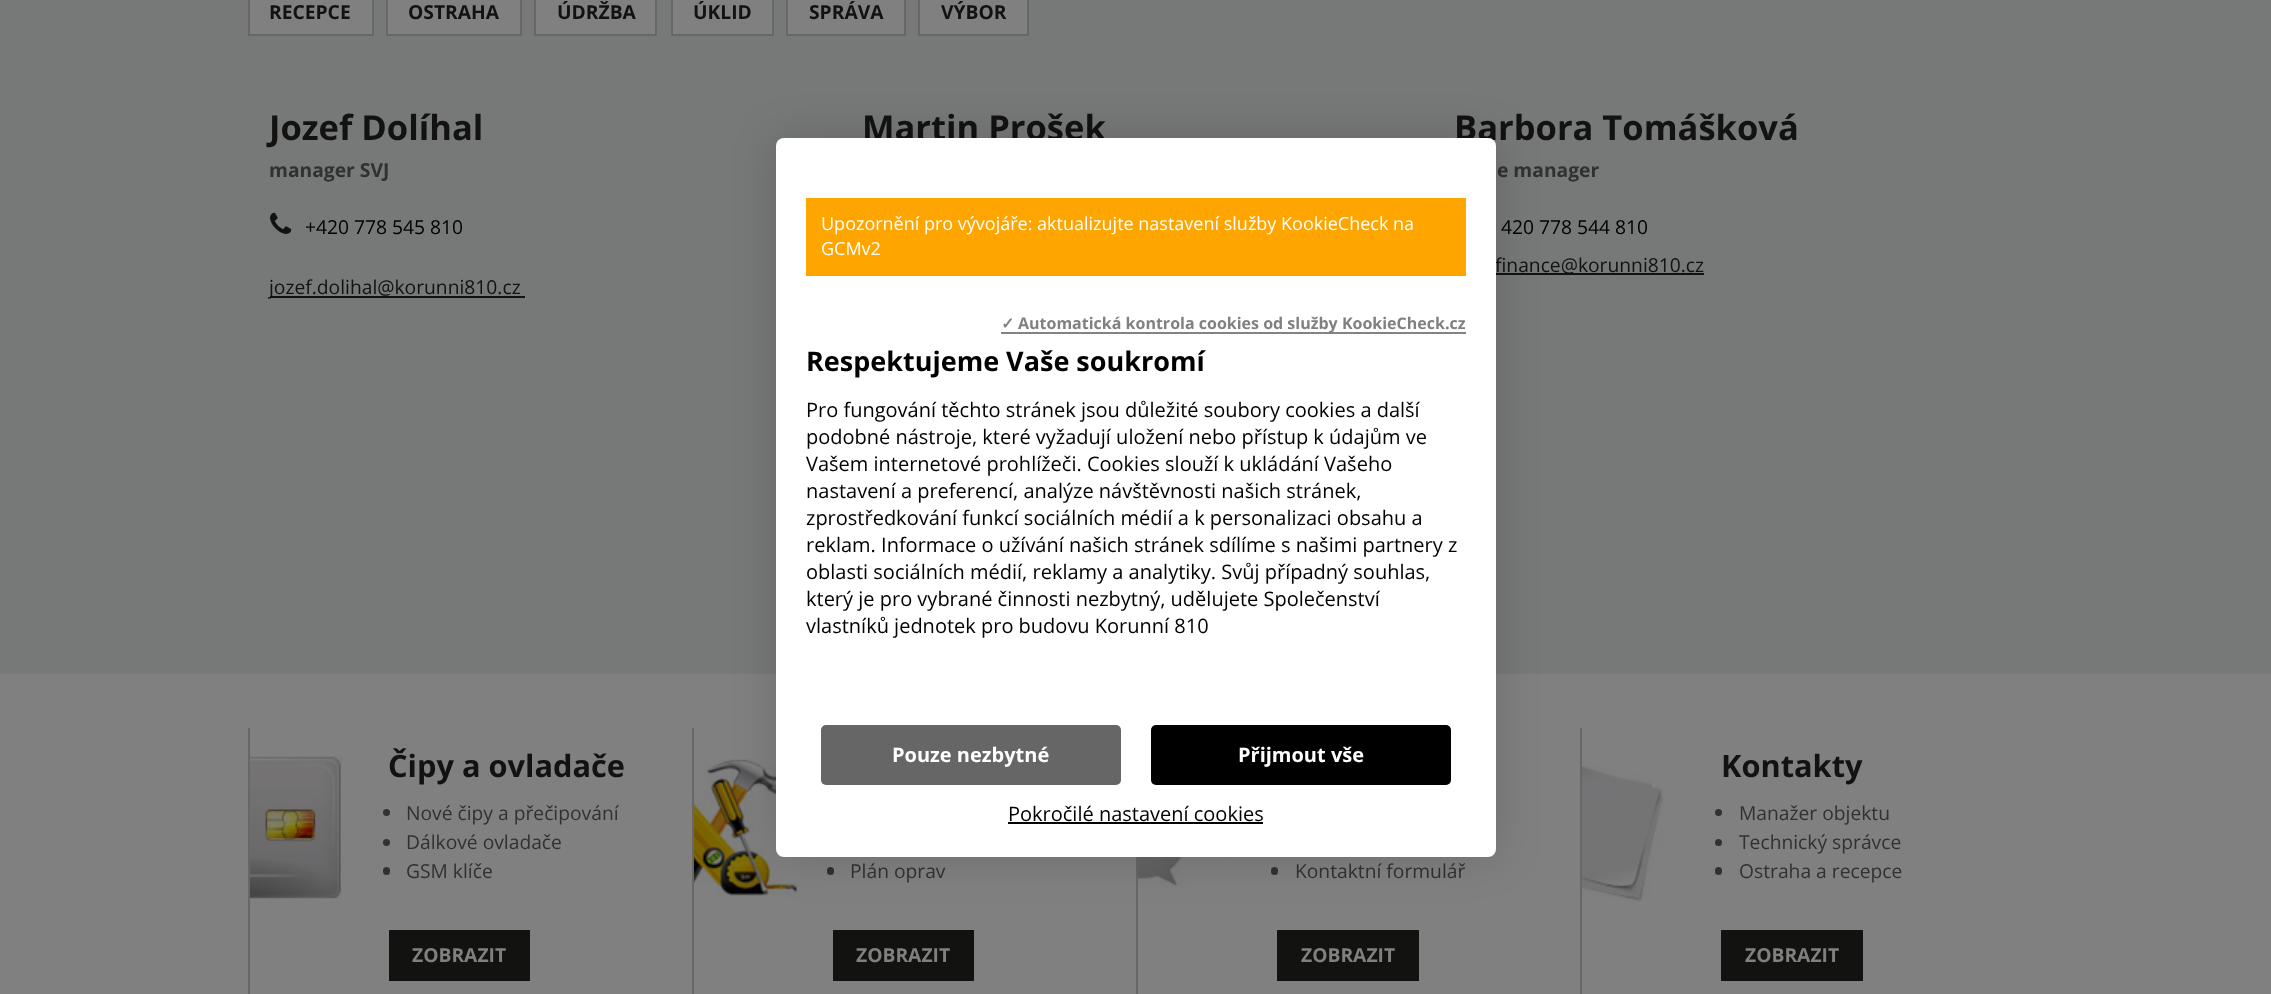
async function draw(canvas) {
  canvas.width = 2271
  canvas.height = 994
  const ctx = canvas.getContext('2d')
  ctx.miterLimit = 4
  ctx.fontKerning = 'normal'
  async function loadImage(src) {
    const img = new Image()
    img.src = src
    await img.decode()
    return img
  }

  ctx.fillStyle = '#808080'
  ctx.fillRect(0, 0, 2271, 994)
  ctx.fillStyle = '#777878'
  ctx.fillRect(0, 0, 2271, 674)
  ctx.fillStyle = '#808080'
  ctx.beginPath()
  ctx.rect(249, -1, 124, 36)
  ctx.fill()
  ctx.strokeStyle = '#676767'
  ctx.lineWidth = 2
  ctx.stroke()
  ctx.font = 'bold 19.25px Open Sans'
  ctx.fillStyle = '#121211'
  ctx.fillText('RECEPCE', 269, 19)
  ctx.fillStyle = '#808080'
  ctx.beginPath()
  ctx.rect(387, -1, 134, 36)
  ctx.fill()
  ctx.stroke()
  ctx.fillStyle = '#121211'
  ctx.fillText('OSTRAHA', 408, 19)
  ctx.fillStyle = '#808080'
  ctx.beginPath()
  ctx.rect(535, -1, 121, 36)
  ctx.fill()
  ctx.stroke()
  ctx.fillStyle = '#121211'
  ctx.fillText('ÚDRŽBA', 557, 19)
  ctx.fillStyle = '#808080'
  ctx.beginPath()
  ctx.rect(672, -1, 101, 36)
  ctx.fill()
  ctx.stroke()
  ctx.fillStyle = '#121211'
  ctx.fillText('ÚKLID', 693, 19)
  ctx.fillStyle = '#808080'
  ctx.beginPath()
  ctx.rect(787, -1, 118, 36)
  ctx.fill()
  ctx.stroke()
  ctx.fillStyle = '#121211'
  ctx.fillText('SPRÁVA', 809, 19)
  ctx.fillStyle = '#808080'
  ctx.beginPath()
  ctx.rect(919, -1, 109, 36)
  ctx.fill()
  ctx.stroke()
  ctx.fillStyle = '#121211'
  ctx.fillText('VÝBOR', 941, 19)
  ctx.font = 'bold 34.5px Open Sans'
  ctx.fillText('Jozef Dolíhal', 269, 140)
  ctx.font = 'bold 19.25px Open Sans'
  ctx.fillStyle = '#313131'
  ctx.fillText('manager SVJ', 269, 177)
  ctx.drawImage(await loadImage('image0.png'), 270, 212, 22, 22)
  ctx.font = '19.25px Open Sans'
  ctx.fillStyle = '#000'
  ctx.fillText('+420 778 545 810', 305, 234)
  ctx.fillStyle = '#121211'
  ctx.fillRect(270, 296, 255, 2)
  ctx.fillText('jozef.dolihal@korunni810.cz', 269, 294)
  ctx.font = 'bold 34.5px Open Sans'
  ctx.fillText('Martin Prošek', 862, 140)
  ctx.fillText('Barbora Tomášková', 1454, 140)
  ctx.font = 'bold 19.25px Open Sans'
  ctx.fillStyle = '#313131'
  ctx.fillText('e manager', 1497, 177)
  ctx.font = '19.25px Open Sans'
  ctx.fillStyle = '#000'
  ctx.fillText('420 778 544 810', 1501, 234)
  ctx.fillStyle = '#121211'
  ctx.fillRect(1496, 273, 208, 2)
  ctx.fillText('finance@korunni810.cz', 1495, 272)
  ctx.drawImage(await loadImage('image1.png'), 250, 756, 92, 143)
  ctx.fillStyle = '#676767'
  ctx.fillRect(248, 728, 2, 266)
  ctx.font = 'bold 30.75px Open Sans'
  ctx.fillStyle = '#121211'
  ctx.fillText('Čipy a ovladače', 388, 777)
  ctx.fillStyle = '#313131'
  ctx.beginPath()
  ctx.arc(386.5, 812.5, 3.5, 0, 2 * Math.PI)
  ctx.fill()
  ctx.font = '19.25px Open Sans'
  ctx.fillText('Nové čipy a přečipování', 406, 820)
  ctx.beginPath()
  ctx.arc(386.5, 842.5, 3.5, 0, 2 * Math.PI)
  ctx.fill()
  ctx.fillText('Dálkové ovladače', 406, 849)
  ctx.beginPath()
  ctx.roundRect(383, 867, 7, 8, 3.5)
  ctx.fill()
  ctx.fillText('GSM klíče', 406, 878)
  ctx.fillStyle = '#121211'
  ctx.fillRect(389, 930, 141, 51)
  ctx.font = 'bold 19.25px Open Sans'
  ctx.fillStyle = '#808080'
  ctx.fillText('ZOBRAZIT', 412, 962)
  ctx.drawImage(await loadImage('image2.png'), 694, 759, 104, 137)
  ctx.fillStyle = '#676767'
  ctx.fillRect(692, 728, 2, 266)
  ctx.fillStyle = '#313131'
  ctx.beginPath()
  ctx.roundRect(827, 867, 7, 8, 3.5)
  ctx.fill()
  ctx.font = '19.25px Open Sans'
  ctx.fillText('Plán oprav', 850, 878)
  ctx.fillStyle = '#121211'
  ctx.fillRect(833, 930, 141, 51)
  ctx.font = 'bold 19.25px Open Sans'
  ctx.fillStyle = '#808080'
  ctx.fillText('ZOBRAZIT', 856, 962)
  ctx.drawImage(await loadImage('image3.png'), 1138, 857, 97, 30)
  ctx.fillStyle = '#676767'
  ctx.fillRect(1136, 857, 2, 137)
  ctx.fillStyle = '#313131'
  ctx.beginPath()
  ctx.roundRect(1271, 867, 7, 8, 3.5)
  ctx.fill()
  ctx.font = '19.25px Open Sans'
  ctx.fillText('Kontaktní formulář', 1295, 878)
  ctx.fillStyle = '#121211'
  ctx.fillRect(1277, 930, 142, 51)
  ctx.font = 'bold 19.25px Open Sans'
  ctx.fillStyle = '#808080'
  ctx.fillText('ZOBRAZIT', 1301, 962)
  ctx.drawImage(await loadImage('image4.png'), 1582, 766, 82, 136)
  ctx.fillStyle = '#676767'
  ctx.fillRect(1580, 728, 2, 266)
  ctx.font = 'bold 30.75px Open Sans'
  ctx.fillStyle = '#121211'
  ctx.fillText('Kontakty', 1721, 777)
  ctx.fillStyle = '#313131'
  ctx.beginPath()
  ctx.arc(1718.5, 812.5, 3.5, 0, 2 * Math.PI)
  ctx.fill()
  ctx.font = '19.25px Open Sans'
  ctx.fillText('Manažer objektu', 1739, 820)
  ctx.beginPath()
  ctx.arc(1718.5, 842.5, 3.5, 0, 2 * Math.PI)
  ctx.fill()
  ctx.fillText('Technický správce', 1739, 849)
  ctx.beginPath()
  ctx.roundRect(1715, 867, 7, 8, 3.5)
  ctx.fill()
  ctx.fillText('Ostraha a recepce', 1739, 878)
  ctx.fillStyle = '#121211'
  ctx.fillRect(1721, 930, 142, 51)
  ctx.font = 'bold 19.25px Open Sans'
  ctx.fillStyle = '#808080'
  ctx.fillText('ZOBRAZIT', 1745, 962)
  ctx.fillStyle = '#00000026'
  ctx.filter = 'blur(22.5px)'
  ctx.beginPath()
  ctx.roundRect(776, 138, 720, 719, 8)
  ctx.fill()
  ctx.filter = 'none'
  ctx.fillStyle = '#fff'
  ctx.beginPath()
  ctx.roundRect(776, 138, 720, 719, 8)
  ctx.fill()
  ctx.fillStyle = '#ffa500'
  ctx.fillRect(806, 198, 660, 78)
  ctx.font = '18px Open Sans'
  ctx.fillStyle = '#fff'
  ctx.fillText('Upozornění pro vývojáře: aktualizujte nastavení služby KookieCheck na', 821, 230)
  ctx.fillText('GCMv2', 821, 255)
  ctx.font = 'bold 16px DejaVu Sans'
  ctx.fillStyle = '#808080'
  ctx.fillText('✓', 1001, 329)
  ctx.fillStyle = '#838383'
  ctx.fillRect(1001, 332, 465, 2)
  ctx.font = 'bold 16px Open Sans'
  ctx.fillStyle = '#808080'
  ctx.fillText('Automatická kontrola cookies od služby KookieCheck.cz', 1018, 329)
  ctx.font = 'bold 27px Open Sans'
  ctx.fillStyle = '#000'
  ctx.fillText('Respektujeme Vaše soukromí', 806, 371)
  ctx.font = '20px Open Sans'
  ctx.fillText('Pro fungování těchto stránek jsou důležité soubory cookies a další', 806, 417)
  ctx.fillText('podobné nástroje, které vyžadují uložení nebo přístup k údajům ve', 806, 444)
  ctx.fillText('Vašem internetové prohlížeči. Cookies slouží k ukládání Vašeho', 806, 471)
  ctx.fillText('nastavení a preferencí, analýze návštěvnosti našich stránek,', 806, 498)
  ctx.fillText('zprostředkování funkcí sociálních médií a k personalizaci obsahu a', 806, 525)
  ctx.fillText('reklam. Informace o užívání našich stránek sdílíme s našimi partnery z', 806, 552)
  ctx.fillText('oblasti sociálních médií, reklamy a analytiky. Svůj případný souhlas,', 806, 579)
  ctx.fillText('který je pro vybrané činnosti nezbytný, udělujete Společenství', 806, 606)
  ctx.fillText('vlastníků jednotek pro budovu Korunní 810', 806, 633)
  ctx.fillStyle = '#666'
  ctx.beginPath()
  ctx.roundRect(821, 725, 300, 60, 5)
  ctx.fill()
  ctx.font = 'bold 20px Open Sans'
  ctx.fillStyle = '#fff'
  ctx.fillText('Pouze nezbytné', 892, 762)
  ctx.fillStyle = '#000'
  ctx.beginPath()
  ctx.roundRect(1151, 725, 300, 60, 5)
  ctx.fill()
  ctx.fillStyle = '#fff'
  ctx.fillText('Přijmout vše', 1238, 762)
  ctx.font = '20px Open Sans'
  ctx.fillStyle = '#000'
  ctx.fillText('Pokročilé nastavení cookies', 1008, 821)
  ctx.fillRect(1008, 822, 255, 2)
}

draw(document.querySelector('canvas'))
